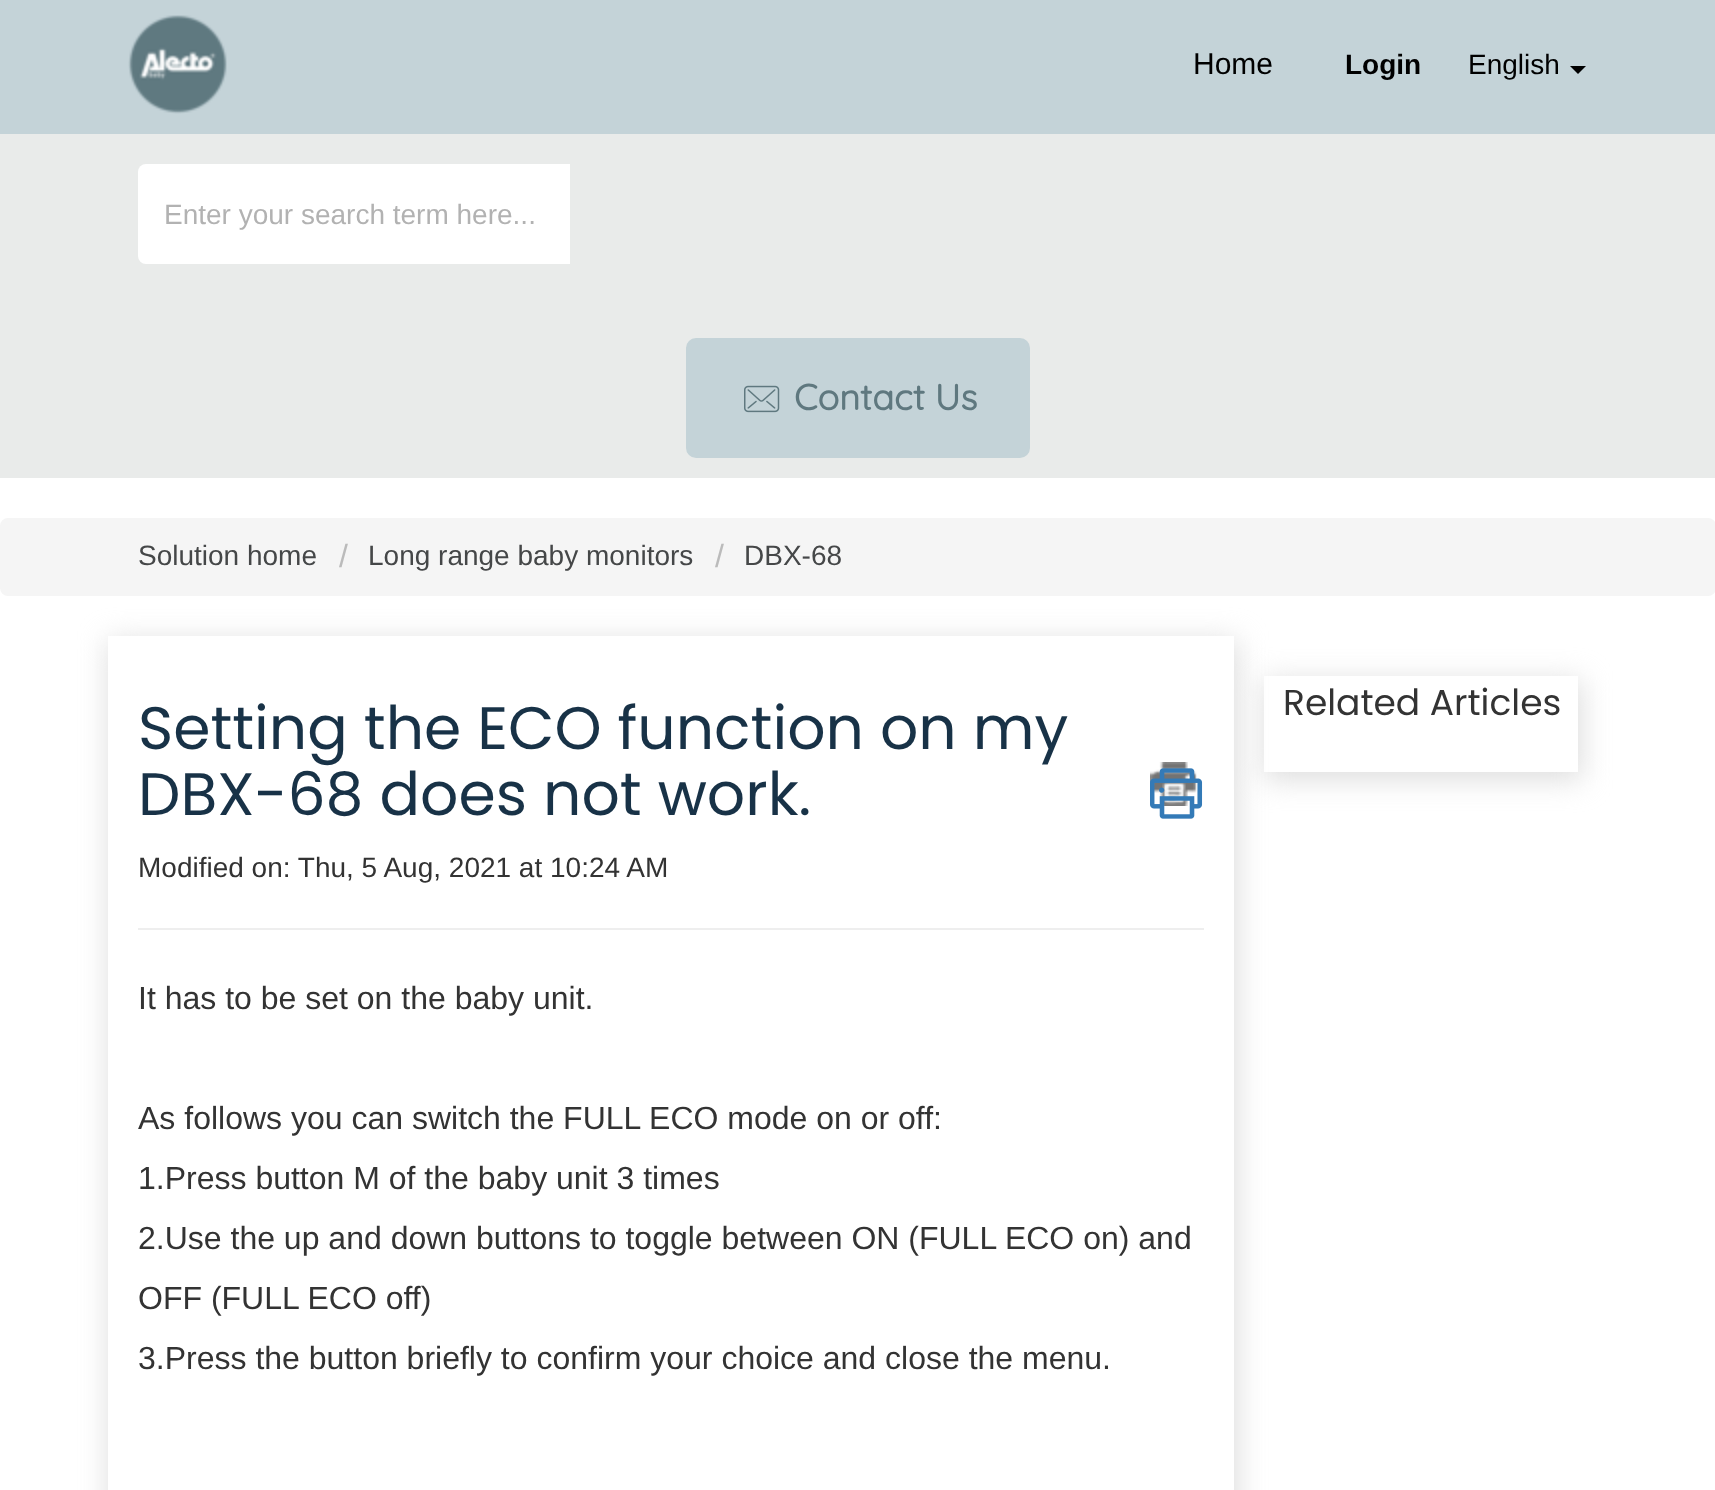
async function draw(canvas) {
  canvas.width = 1715
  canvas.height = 1490
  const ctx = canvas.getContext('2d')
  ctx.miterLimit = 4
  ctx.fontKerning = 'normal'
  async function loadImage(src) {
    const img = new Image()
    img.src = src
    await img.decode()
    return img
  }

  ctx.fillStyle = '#fff'
  ctx.fillRect(0, 0, 1715, 1490)
  ctx.fillStyle = '#c4d3d8'
  ctx.fillRect(0, 0, 1715, 134)
  ctx.drawImage(await loadImage('image0.png'), 128, 15, 99, 99)
  ctx.font = '30px Liberation Sans'
  ctx.fillStyle = '#000'
  ctx.fillText('Home', 1193, 74)
  ctx.font = 'bold 28px Liberation Sans'
  ctx.fillText('Login', 1345, 74)
  ctx.font = '28px Liberation Sans'
  ctx.fillText('English', 1468, 74)
  ctx.beginPath()
  ctx.moveTo(1570, 66)
  ctx.lineTo(1586, 66)
  ctx.lineTo(1578, 74)
  ctx.closePath()
  ctx.fill()
  ctx.fillStyle = '#e9ebea'
  ctx.fillRect(0, 134, 1715, 344)
  ctx.fillStyle = '#fff'
  ctx.beginPath()
  ctx.roundRect(138, 164, 432, 100, [8, 0, 0, 8])
  ctx.fill()
  ctx.fillStyle = '#b2b2b2'
  ctx.fillText('Enter your search term here...', 164, 224)
  ctx.fillStyle = '#c4d3d8'
  ctx.beginPath()
  ctx.roundRect(687, 339, 342, 118, 9)
  ctx.fill()
  ctx.strokeStyle = '#c4d3d8'
  ctx.lineWidth = 2
  ctx.stroke()
  ctx.drawImage(await loadImage('image1.png'), 744, 385, 36, 28)
  ctx.font = 'bold 36px Quicksand'
  ctx.fillStyle = '#5f787f'
  ctx.fillText('Contact Us', 794, 410)
  ctx.fillStyle = '#f5f5f5'
  ctx.beginPath()
  ctx.roundRect(0, 518, 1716, 78, 8)
  ctx.fill()
  ctx.font = '28px Liberation Sans'
  ctx.fillStyle = '#454748'
  ctx.fillText('Solution home', 138, 565)
  ctx.font = '32px Liberation Sans'
  ctx.fillStyle = '#bbb'
  ctx.fillText('/', 339, 567)
  ctx.font = '28px Liberation Sans'
  ctx.fillStyle = '#454748'
  ctx.fillText('Long range baby monitors', 368, 565)
  ctx.font = '32px Liberation Sans'
  ctx.fillStyle = '#bbb'
  ctx.fillText('/', 715, 567)
  ctx.font = '28px Liberation Sans'
  ctx.fillStyle = '#454748'
  ctx.fillText('DBX-68', 744, 565)
  ctx.save()
  ctx.beginPath()
  ctx.moveTo(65, 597)
  ctx.lineTo(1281, 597)
  ctx.lineTo(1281, 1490)
  ctx.lineTo(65, 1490)
  ctx.closePath()
  ctx.moveTo(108, 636)
  ctx.lineTo(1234, 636)
  ctx.lineTo(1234, 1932)
  ctx.lineTo(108, 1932)
  ctx.closePath()
  ctx.clip('evenodd')
  ctx.fillStyle = '#dedede'
  ctx.filter = 'blur(14px)'
  ctx.beginPath()
  ctx.rect(108, 640, 1130, 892)
  ctx.fill()
  ctx.filter = 'none'
  ctx.restore()
  ctx.font = '60px Poppins'
  ctx.fillStyle = '#183247'
  ctx.fillText('Setting the ECO function on my', 138, 749)
  ctx.fillText('DBX-68 does not work.', 138, 815)
  ctx.drawImage(await loadImage('image2.png'), 1150, 762, 47, 44)
  ctx.drawImage(await loadImage('image3.png'), 1150, 768, 53, 51)
  ctx.font = '28px Liberation Sans'
  ctx.fillStyle = '#333'
  ctx.fillText('Modified on: Thu, 5 Aug, 2021 at 10:24 AM', 138, 877)
  ctx.fillStyle = '#eee'
  ctx.fillRect(138, 928, 1066, 2)
  ctx.font = '32px Liberation Sans'
  ctx.fillStyle = '#333'
  ctx.fillText('It has to be set on the baby unit.', 138, 1009)
  ctx.fillText('As follows you can switch the FULL ECO mode on or off:', 138, 1129)
  ctx.fillText('1.Press button M of the baby unit 3 times', 138, 1189)
  ctx.fillText('2.Use the up and down buttons to toggle between ON (FULL ECO on) and', 138, 1249)
  ctx.fillText('OFF (FULL ECO off)', 138, 1309)
  ctx.fillText('3.Press the button briefly to confirm your choice and close the menu.', 138, 1369)
  ctx.save()
  ctx.beginPath()
  ctx.moveTo(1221, 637)
  ctx.lineTo(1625, 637)
  ctx.lineTo(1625, 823)
  ctx.lineTo(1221, 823)
  ctx.closePath()
  ctx.moveTo(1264, 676)
  ctx.lineTo(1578, 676)
  ctx.lineTo(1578, 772)
  ctx.lineTo(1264, 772)
  ctx.closePath()
  ctx.clip('evenodd')
  ctx.fillStyle = '#dedede'
  ctx.filter = 'blur(14px)'
  ctx.beginPath()
  ctx.rect(1264, 680, 318, 100)
  ctx.fill()
  ctx.filter = 'none'
  ctx.restore()
  ctx.font = '36px Poppins'
  ctx.fillText('Related Articles', 1283, 715)
}

draw(document.querySelector('canvas'))
